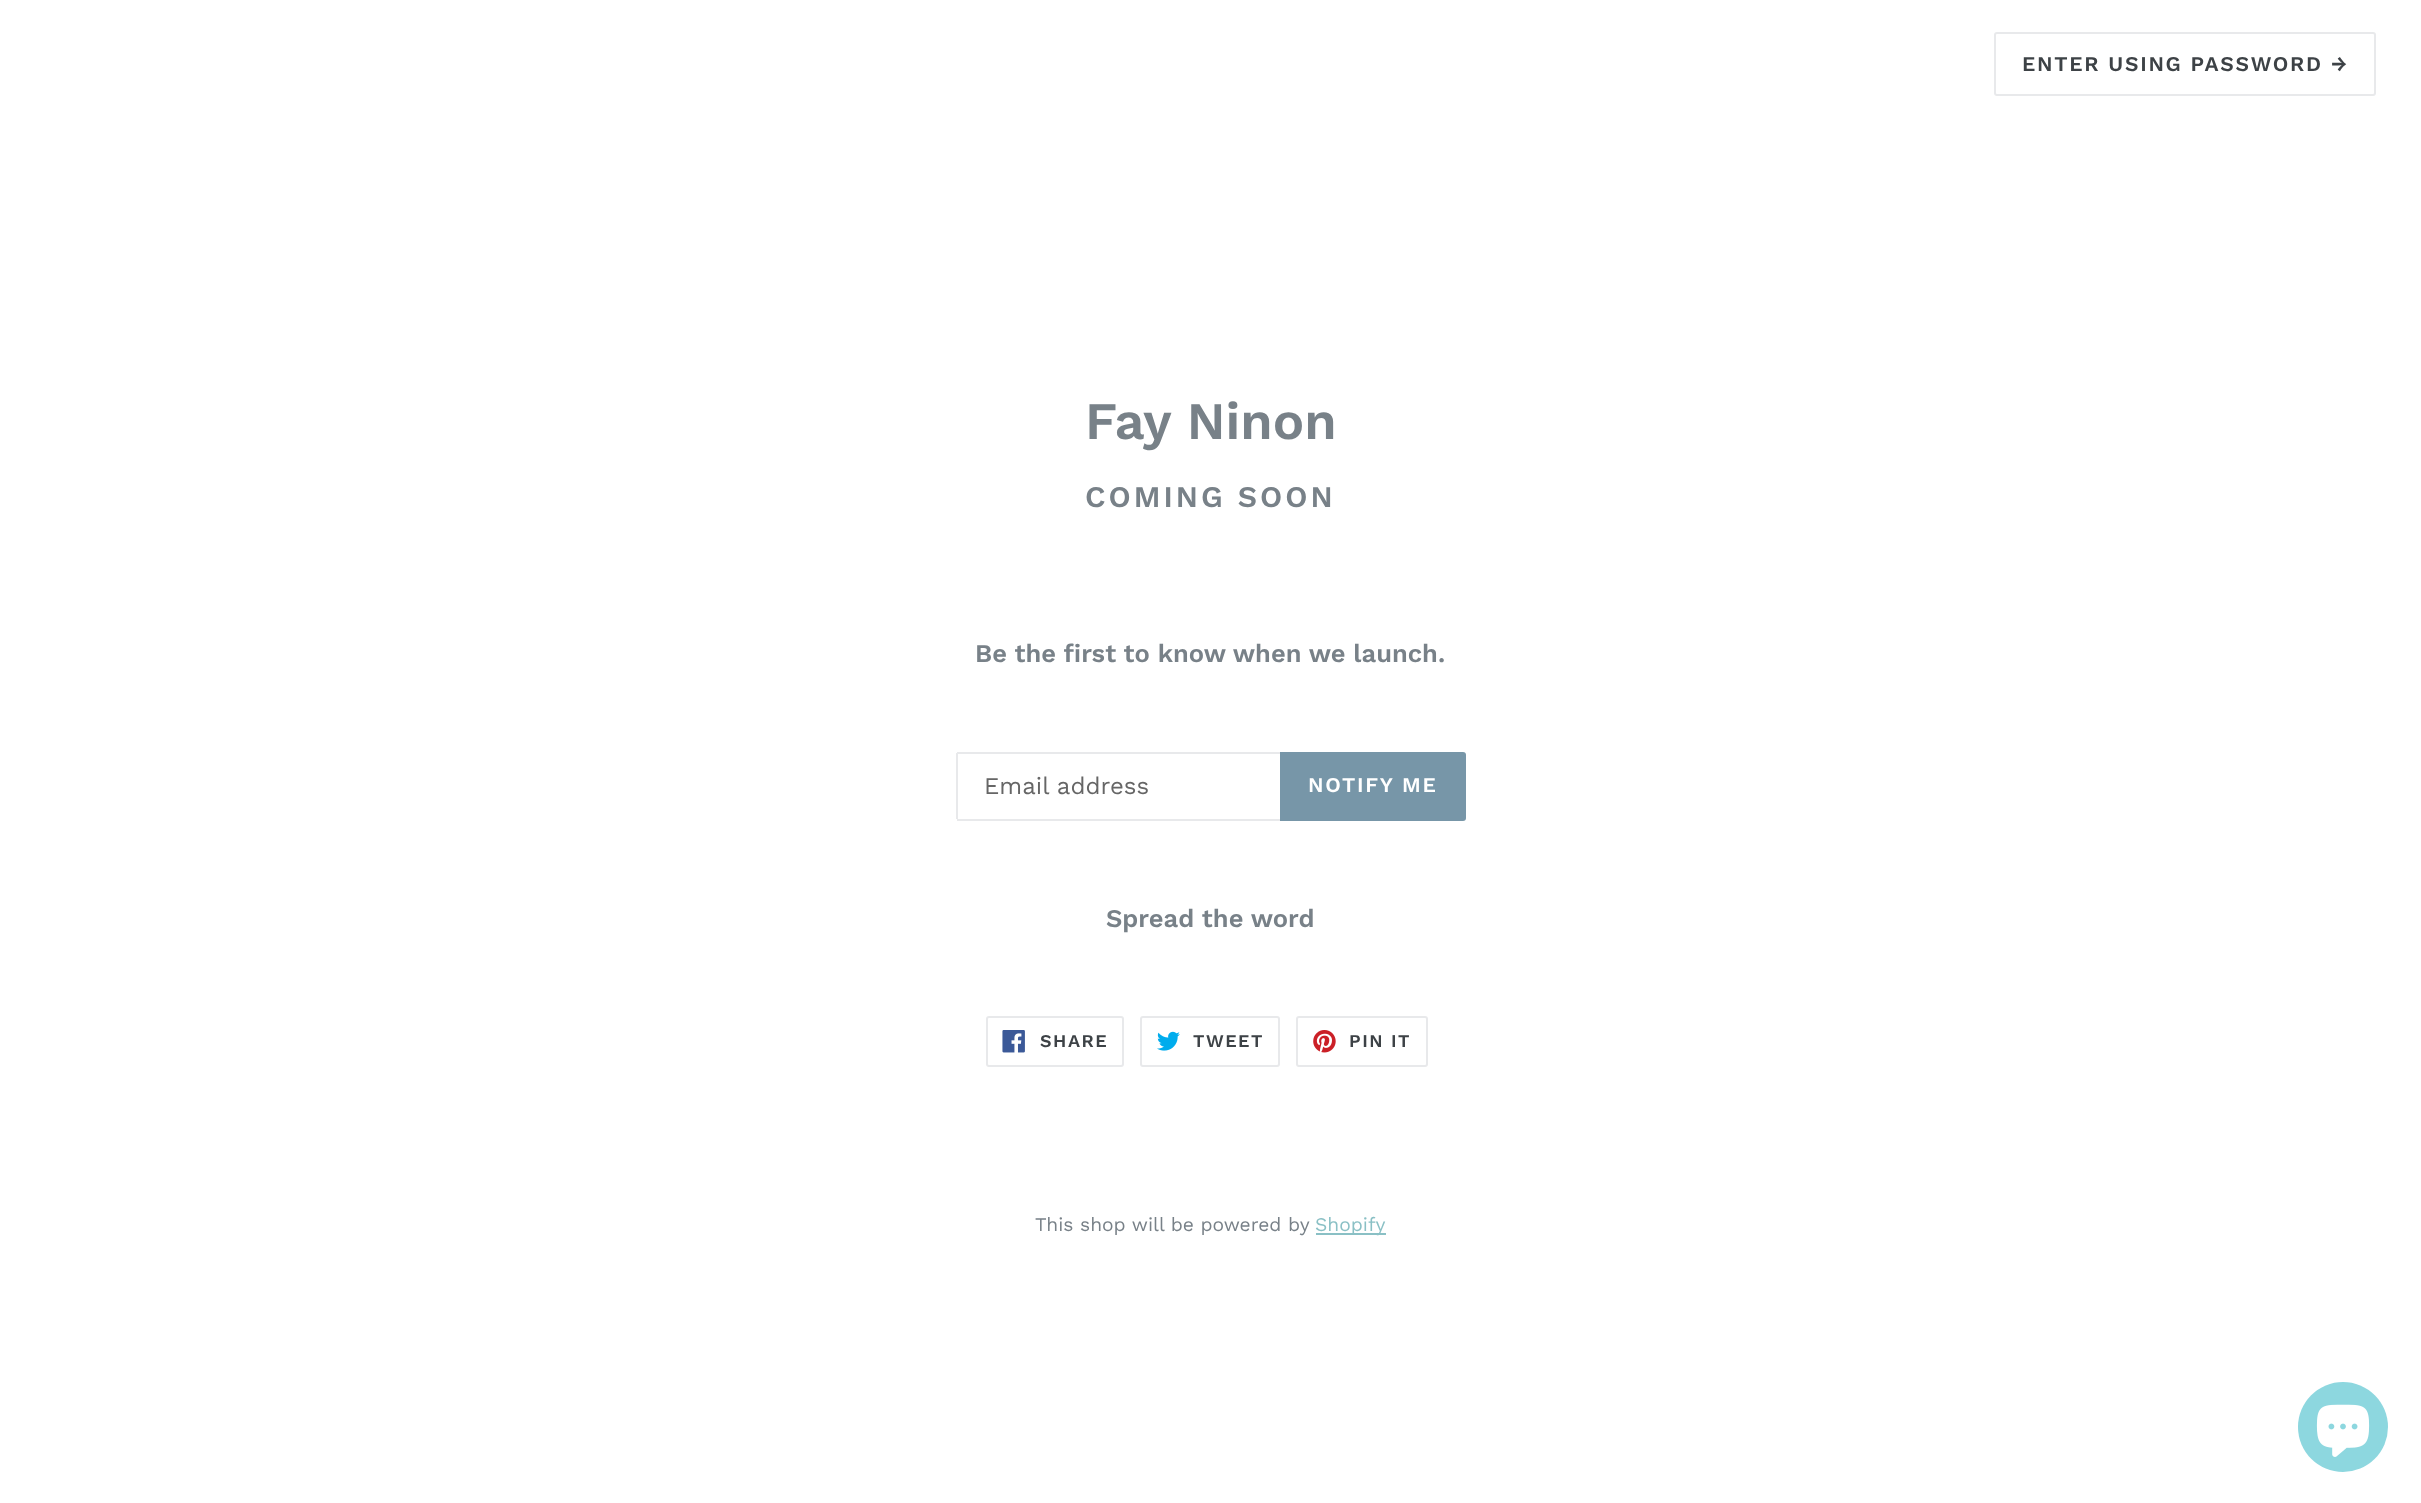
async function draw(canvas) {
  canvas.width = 2421
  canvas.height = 1503
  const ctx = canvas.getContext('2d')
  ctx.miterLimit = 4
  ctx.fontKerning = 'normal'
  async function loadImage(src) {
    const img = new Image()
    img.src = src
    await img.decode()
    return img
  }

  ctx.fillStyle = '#fff'
  ctx.fillRect(0, 0, 2421, 1503)
  ctx.beginPath()
  ctx.roundRect(1995, 33, 380, 62, 2)
  ctx.strokeStyle = '#e8e9eb'
  ctx.lineWidth = 2
  ctx.stroke()
  ctx.letterSpacing = '1.7px'
  ctx.font = '600 21px Work Sans'
  ctx.fillStyle = '#3d4246'
  ctx.fillText('ENTER USING PASSWORD →', 2022, 71)
  ctx.letterSpacing = '0px'
  ctx.font = '600 52.5px Work Sans'
  ctx.fillStyle = '#788188'
  ctx.fillText('Fay Ninon', 1085, 439)
  ctx.letterSpacing = '3px'
  ctx.font = '600 30px Work Sans'
  ctx.fillText('COMING SOON', 1085, 507)
  ctx.letterSpacing = '0px'
  ctx.font = '600 25.5px Work Sans'
  ctx.fillText('Be the first to know when we launch.', 975, 662)
  ctx.fillStyle = '#e8e9eb'
  ctx.fillRect(957, 752, 323, 2)
  ctx.fillRect(957, 819, 323, 2)
  ctx.fillRect(956, 753, 2, 66)
  ctx.font = '24px Work Sans'
  ctx.fillStyle = '#666'
  ctx.fillText('Email address', 984, 794)
  ctx.fillStyle = '#7796a8'
  ctx.beginPath()
  ctx.roundRect(1280, 752, 186, 69, [0, 3, 3, 0])
  ctx.fill()
  ctx.letterSpacing = '1.7px'
  ctx.font = '600 21px Work Sans'
  ctx.fillStyle = '#fff'
  ctx.fillText('NOTIFY ME', 1308, 792)
  ctx.letterSpacing = '0px'
  ctx.font = '600 25.5px Work Sans'
  ctx.fillStyle = '#788188'
  ctx.fillText('Spread the word', 1106, 927)
  ctx.beginPath()
  ctx.roundRect(987, 1017, 136, 49, 2)
  ctx.stroke()
  ctx.drawImage(await loadImage('image0.png'), 1002, 1030, 23, 23)
  ctx.letterSpacing = '1.5px'
  ctx.font = '600 18px Work Sans'
  ctx.fillStyle = '#3d4246'
  ctx.fillText('SHARE', 1040, 1047)
  ctx.beginPath()
  ctx.roundRect(1141, 1017, 138, 49, 2)
  ctx.stroke()
  ctx.drawImage(await loadImage('image1.png'), 1157, 1031, 23, 20)
  ctx.fillText('TWEET', 1193, 1047)
  ctx.beginPath()
  ctx.roundRect(1297, 1017, 130, 49, 2)
  ctx.stroke()
  ctx.drawImage(await loadImage('image2.png'), 1313, 1030, 23, 23)
  ctx.fillText('PIN IT', 1349, 1047)
  ctx.letterSpacing = '0px'
  ctx.font = '19.25px Work Sans'
  ctx.fillStyle = '#788188'
  ctx.fillText('This shop will be powered by', 1035, 1231)
  ctx.fillStyle = '#8ac0c5'
  ctx.fillRect(1316, 1233, 70, 2)
  ctx.fillText('Shopify', 1315, 1231)
  ctx.fillStyle = '#8dd7df'
  ctx.beginPath()
  ctx.arc(2343, 1427, 45, 0, 2 * Math.PI)
  ctx.fill()
  ctx.drawImage(await loadImage('image3.png'), 2316, 1404, 54, 53)
}

draw(document.querySelector('canvas'))
